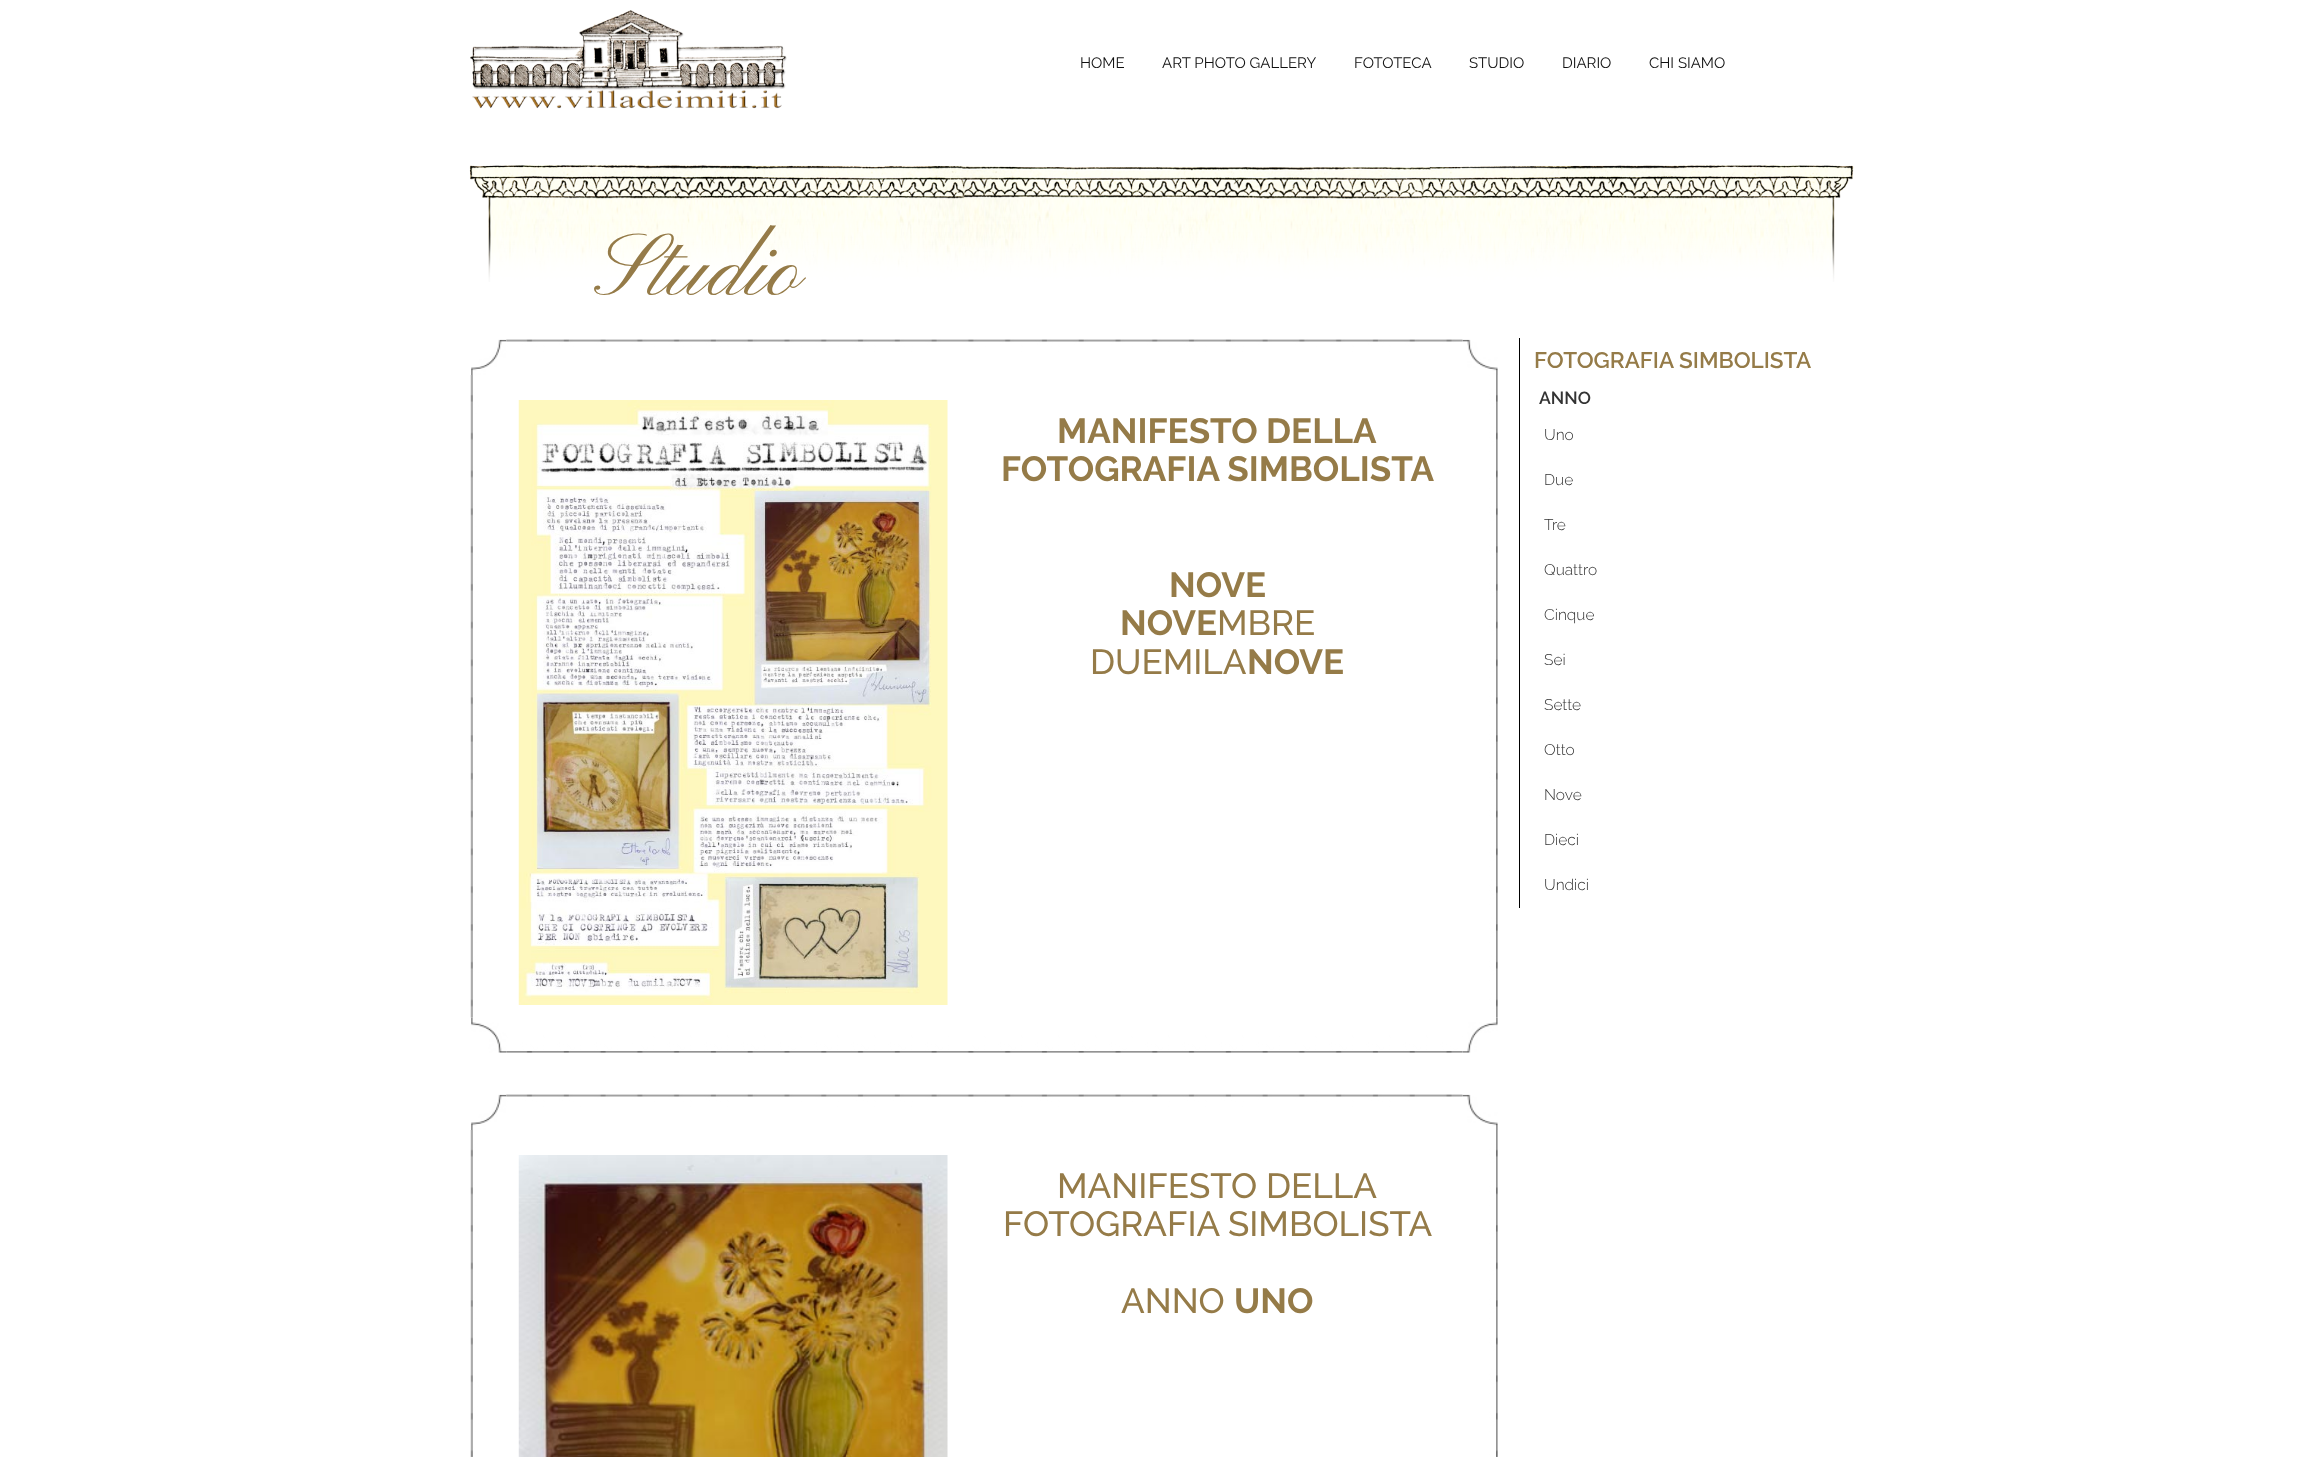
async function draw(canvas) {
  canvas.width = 2324
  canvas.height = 1457
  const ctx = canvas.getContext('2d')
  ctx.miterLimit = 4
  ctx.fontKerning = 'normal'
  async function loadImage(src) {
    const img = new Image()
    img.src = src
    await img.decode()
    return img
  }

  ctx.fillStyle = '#fff'
  ctx.fillRect(0, 0, 2324, 1457)
  ctx.drawImage(await loadImage('image0.png'), 470, 10, 317, 99)
  ctx.font = '15px Raleway'
  ctx.fillStyle = '#101010'
  ctx.fillText('HOME', 1080, 68)
  ctx.fillText('ART PHOTO GALLERY', 1162, 68)
  ctx.fillText('FOTOTECA', 1354, 68)
  ctx.fillText('STUDIO', 1469, 68)
  ctx.fillText('DIARIO', 1562, 68)
  ctx.fillText('CHI SIAMO', 1649, 68)
  ctx.drawImage(await loadImage('image1.png'), 469, 165, 1385, 117)
  ctx.font = '90px Pinyon Script'
  ctx.fillStyle = '#957b48'
  ctx.fillText('Studio', 594, 295)
  ctx.drawImage(await loadImage('image2.png'), 470, 339, 1028, 714)
  ctx.drawImage(await loadImage('image3.png'), 518, 400, 430, 605)
  ctx.font = 'bold 35px Raleway'
  ctx.fillText('MANIFESTO DELLA', 1057, 443)
  ctx.fillText('FOTOGRAFIA SIMBOLISTA', 1001, 481)
  ctx.fillText('NOVE', 1169, 597)
  ctx.fillText('NOVE', 1120, 635)
  ctx.font = '500 35px Raleway'
  ctx.fillText('MBRE', 1217, 635)
  ctx.fillText('DUEMILA', 1090, 674)
  ctx.font = 'bold 35px Raleway'
  ctx.fillText('NOVE', 1247, 674)
  ctx.drawImage(await loadImage('image4.png'), 470, 1094, 1028, 363)
  ctx.drawImage(await loadImage('image5.png'), 518, 1155, 430, 302)
  ctx.font = '500 35px Raleway'
  ctx.fillText('MANIFESTO DELLA', 1057, 1198)
  ctx.fillText('FOTOGRAFIA SIMBOLISTA', 1003, 1236)
  ctx.fillText('ANNO', 1121, 1313)
  ctx.font = 'bold 35px Raleway'
  ctx.fillText('UNO', 1234, 1313)
  ctx.fillStyle = '#000'
  ctx.fillRect(1519, 338, 1, 570)
  ctx.font = '600 22.5px Raleway'
  ctx.fillStyle = '#957b48'
  ctx.fillText('FOTOGRAFIA SIMBOLISTA', 1534, 368)
  ctx.font = '600 17.5px Raleway'
  ctx.fillStyle = '#333'
  ctx.fillText('ANNO', 1539, 404)
  ctx.font = '300 15.5px Raleway'
  ctx.fillText('Uno', 1544, 440)
  ctx.fillText('Due', 1544, 485)
  ctx.fillText('Tre', 1544, 530)
  ctx.fillText('Quattro', 1544, 575)
  ctx.fillText('Cinque', 1544, 620)
  ctx.fillText('Sei', 1544, 665)
  ctx.fillText('Sette', 1544, 710)
  ctx.fillText('Otto', 1544, 755)
  ctx.fillText('Nove', 1544, 800)
  ctx.fillText('Dieci', 1544, 845)
  ctx.fillText('Undici', 1544, 890)
}

draw(document.querySelector('canvas'))
